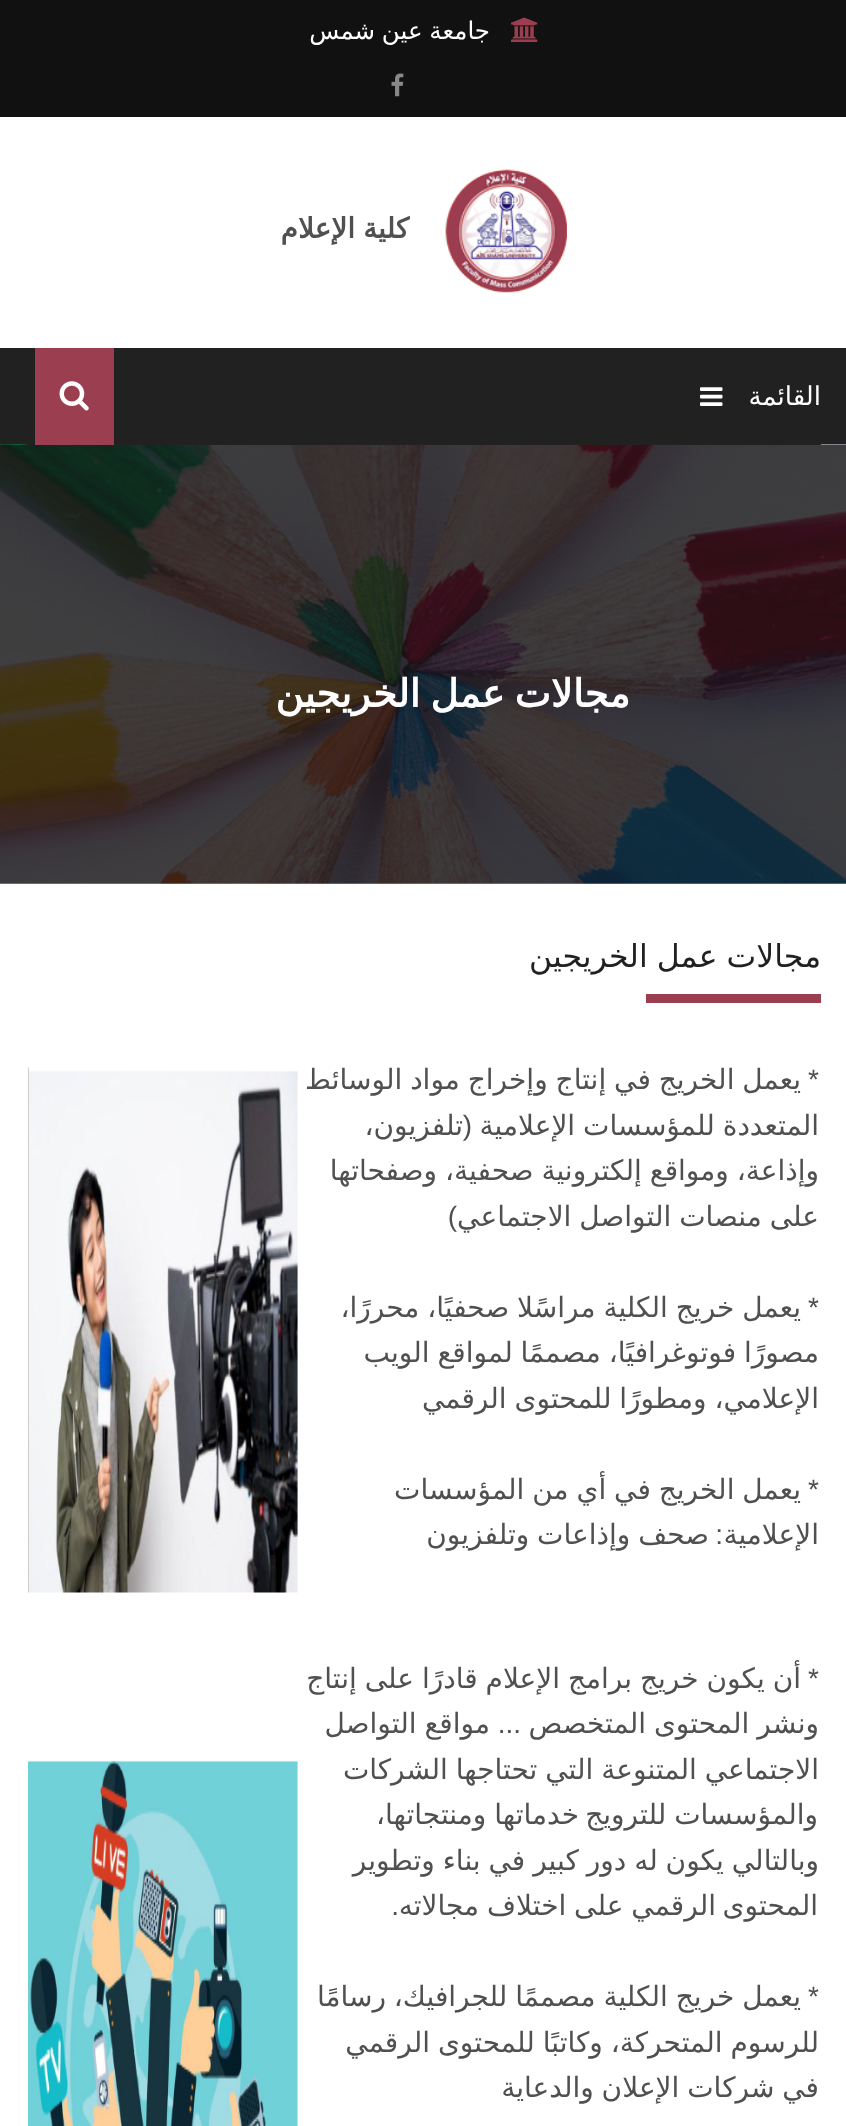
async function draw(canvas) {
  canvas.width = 846
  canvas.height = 2126
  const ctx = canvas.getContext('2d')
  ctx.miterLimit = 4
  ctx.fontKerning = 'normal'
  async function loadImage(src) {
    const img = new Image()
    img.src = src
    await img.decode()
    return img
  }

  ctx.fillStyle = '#fff'
  ctx.fillRect(0, 0, 846, 2126)
  ctx.fillStyle = '#111'
  ctx.fillRect(0, 0, 846, 117)
  ctx.drawImage(await loadImage('image0.png'), 511, 17, 27, 25)
  ctx.wordSpacing = '-1px'
  ctx.direction = 'rtl'
  ctx.font = '24.5px DejaVu Sans'
  ctx.fillStyle = '#fff'
  ctx.fillText('جامعة عين شمس', 490, 39)
  ctx.drawImage(await loadImage('image1.png'), 391, 73, 13, 24)
  ctx.drawImage(await loadImage('image2.png'), 445, 169, 122, 124)
  ctx.font = 'bold 28px DejaVu Sans'
  ctx.fillStyle = '#505050'
  ctx.fillText('كلية الإعلام', 409, 238)
  ctx.fillStyle = '#212121'
  ctx.fillRect(0, 348, 846, 97)
  ctx.drawImage(await loadImage('image5.png'), 0, 444, 846, 440)
  ctx.fillStyle = '#222'
  ctx.fillRect(26, 444, 795, 1)
  ctx.wordSpacing = '0px'
  ctx.font = '26px DejaVu Sans'
  ctx.fillStyle = '#fff'
  ctx.fillText('القائمة', 821, 405)
  ctx.drawImage(await loadImage('image3.png'), 700, 387, 23, 19)
  ctx.fillStyle = '#9b3e50'
  ctx.fillRect(35, 348, 79, 97)
  ctx.drawImage(await loadImage('image4.png'), 59, 381, 30, 30)
  ctx.letterSpacing = '1.75px'
  ctx.wordSpacing = '-4px'
  ctx.font = 'bold 38.5px DejaVu Sans'
  ctx.fillStyle = '#fff'
  ctx.fillText('مجالات عمل الخريجين', 630, 707)
  ctx.letterSpacing = '0px'
  ctx.wordSpacing = '-1px'
  ctx.font = '31.5px DejaVu Sans'
  ctx.fillStyle = '#212121'
  ctx.fillText('مجالات عمل الخريجين', 821, 967)
  ctx.fillStyle = '#9b3e50'
  ctx.fillRect(646, 994, 175, 9)
  ctx.wordSpacing = '0px'
  ctx.font = '28px Liberation Sans'
  ctx.fillStyle = '#505050'
  ctx.fillText('*', 819, 1089)
  ctx.wordSpacing = '-1px'
  ctx.font = '28px DejaVu Sans'
  ctx.fillText('يعمل الخريج في إنتاج وإخراج مواد الوسائط', 801, 1089)
  ctx.fillText('المتعددة للمؤسسات الإعلامية', 819, 1135)
  ctx.wordSpacing = '0px'
  ctx.font = '28px Liberation Sans'
  ctx.fillText('(', 472, 1135)
  ctx.font = '28px DejaVu Sans'
  ctx.fillText('تلفزيون،', 463, 1135)
  ctx.wordSpacing = '-1px'
  ctx.fillText('وإذاعة، ومواقع إلكترونية صحفية، وصفحاتها', 819, 1180)
  ctx.fillText('على منصات التواصل الاجتماعي', 819, 1226)
  ctx.wordSpacing = '0px'
  ctx.font = '28px Liberation Sans'
  ctx.fillText(')', 457, 1226)
  ctx.fillText('*', 819, 1317)
  ctx.wordSpacing = '-1px'
  ctx.font = '28px DejaVu Sans'
  ctx.fillText('يعمل خريج الكلية مراسًلا صحفيًا، محررًا،', 801, 1317)
  ctx.fillText('مصورًا فوتوغرافيًا، مصممًا لمواقع الويب', 819, 1362)
  ctx.fillText('الإعلامي، ومطورًا للمحتوى الرقمي', 819, 1408)
  ctx.wordSpacing = '0px'
  ctx.font = '28px Liberation Sans'
  ctx.fillText('*', 819, 1499)
  ctx.wordSpacing = '-1px'
  ctx.font = '28px DejaVu Sans'
  ctx.fillText('يعمل الخريج في أي من المؤسسات', 801, 1499)
  ctx.wordSpacing = '0px'
  ctx.fillText('الإعلامية', 819, 1544)
  ctx.font = '28px Liberation Sans'
  ctx.fillText(':', 723, 1544)
  ctx.wordSpacing = '-1px'
  ctx.font = '28px DejaVu Sans'
  ctx.fillText('صحف وإذاعات وتلفزيون', 709, 1544)
  ctx.drawImage(await loadImage('image6.png'), 28, 1067, 270, 526)
  ctx.wordSpacing = '0px'
  ctx.font = '28px Liberation Sans'
  ctx.fillText('*', 819, 1688)
  ctx.wordSpacing = '-1px'
  ctx.font = '28px DejaVu Sans'
  ctx.fillText('أن يكون خريج برامج الإعلام قادرًا على إنتاج', 801, 1688)
  ctx.fillText('ونشر المحتوى المتخصص', 819, 1733)
  ctx.wordSpacing = '0px'
  ctx.font = '28px Liberation Sans'
  ctx.fillText('...', 521, 1733)
  ctx.wordSpacing = '-1px'
  ctx.font = '28px DejaVu Sans'
  ctx.fillText('مواقع التواصل', 490, 1733)
  ctx.fillText('الاجتماعي المتنوعة التي تحتاجها الشركات', 819, 1779)
  ctx.fillText('والمؤسسات للترويج', 818, 1824)
  ctx.fillText('خدماتها ومنتجاتها،', 579, 1824)
  ctx.fillText('وبالتالي يكون له دور كبير في بناء وتطوير', 819, 1870)
  ctx.wordSpacing = '0px'
  ctx.fillText('المحتوى', 818, 1915)
  ctx.wordSpacing = '-1px'
  ctx.fillText('الرقمي على اختلاف مجالاته', 716, 1915)
  ctx.wordSpacing = '0px'
  ctx.font = '28px Liberation Sans'
  ctx.fillText('.', 399, 1915)
  ctx.fillText('*', 819, 2006)
  ctx.wordSpacing = '-1px'
  ctx.font = '28px DejaVu Sans'
  ctx.fillText('يعمل خريج الكلية مصممًا للجرافيك، رسامًا', 801, 2006)
  ctx.fillText('للرسوم المتحركة، وكاتبًا للمحتوى الرقمي', 819, 2052)
  ctx.fillText('في شركات الإعلان والدعاية', 819, 2097)
  ctx.drawImage(await loadImage('image7.png'), 28, 1760, 270, 366)
}

draw(document.querySelector('canvas'))
